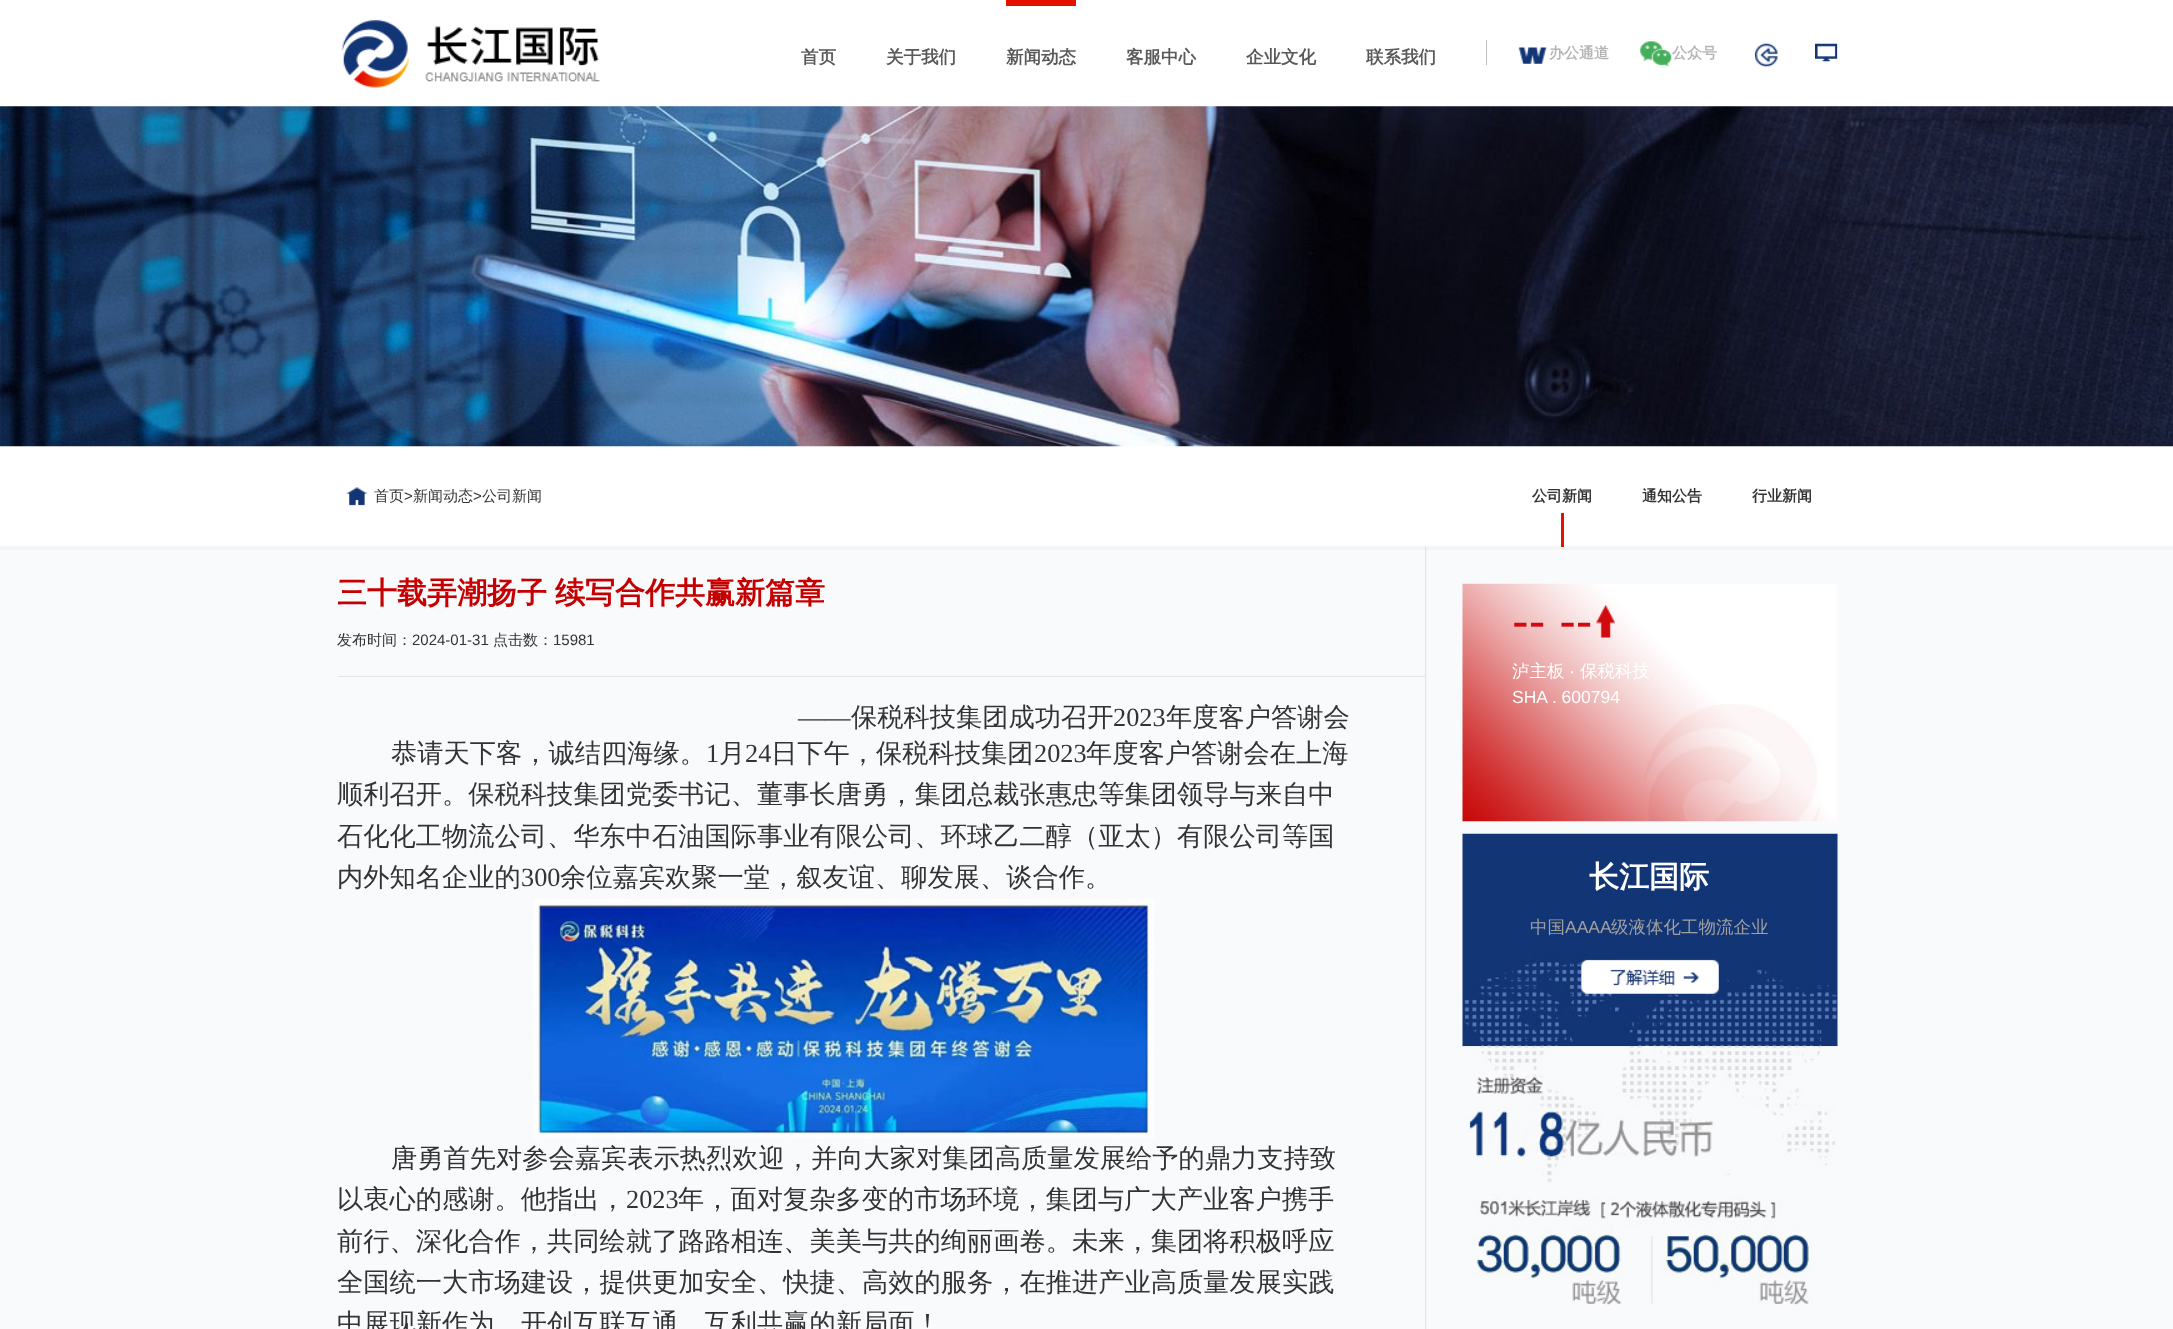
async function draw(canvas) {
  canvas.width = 2173
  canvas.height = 1329
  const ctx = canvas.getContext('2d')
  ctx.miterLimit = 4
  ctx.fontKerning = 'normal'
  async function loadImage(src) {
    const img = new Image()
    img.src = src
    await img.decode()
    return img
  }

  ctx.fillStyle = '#fff'
  ctx.fillRect(0, 0, 2173, 1329)
  ctx.drawImage(await loadImage('image0.png'), 341, 19, 260, 69)
  ctx.font = 'bold 17.5px WenQuanYi Zen Hei'
  ctx.fillStyle = '#595959'
  ctx.fillText('首页', 801, 63)
  ctx.fillText('关于我们', 886, 63)
  ctx.fillStyle = '#e51100'
  ctx.fillRect(1006, 0, 70, 6)
  ctx.fillStyle = '#595959'
  ctx.fillText('新闻动态', 1006, 63)
  ctx.fillText('客服中心', 1126, 63)
  ctx.fillText('企业文化', 1246, 63)
  ctx.fillText('联系我们', 1366, 63)
  ctx.fillStyle = '#bfbfbf'
  ctx.fillRect(1486, 40, 1, 25)
  ctx.drawImage(await loadImage('image1.png'), 1518, 47, 29, 17)
  ctx.font = 'bold 15px WenQuanYi Zen Hei'
  ctx.fillStyle = '#b5b5b5'
  ctx.fillText('办公通道', 1549, 58)
  ctx.drawImage(await loadImage('image2.png'), 1640, 41, 32, 26)
  ctx.fillText('公众号', 1672, 58)
  ctx.drawImage(await loadImage('image3.png'), 1755, 43, 23, 24)
  ctx.drawImage(await loadImage('image4.png'), 1815, 43, 23, 19)
  ctx.fillStyle = '#f9fafc'
  ctx.fillRect(0, 446, 2173, 883)
  ctx.drawImage(await loadImage('image6.png'), 0, 446, 2173, 104)
  ctx.drawImage(await loadImage('image5.png'), 0, 106, 2173, 341)
  ctx.drawImage(await loadImage('image7.png'), 346, 487, 22, 19)
  ctx.font = '500 15px WenQuanYi Zen Hei'
  ctx.fillStyle = '#333'
  ctx.fillText('首页', 374, 501)
  ctx.font = '15px Liberation Sans'
  ctx.fillText('>', 404, 501)
  ctx.font = '500 15px WenQuanYi Zen Hei'
  ctx.fillText('新闻动态', 413, 501)
  ctx.font = '15px Liberation Sans'
  ctx.fillText('>', 473, 501)
  ctx.font = '500 15px WenQuanYi Zen Hei'
  ctx.fillText('公司新闻', 482, 501)
  ctx.fillStyle = '#e51201'
  ctx.fillRect(1561, 513, 3, 34)
  ctx.font = 'bold 15px WenQuanYi Zen Hei'
  ctx.fillStyle = '#333'
  ctx.fillText('公司新闻', 1532, 501)
  ctx.fillText('通知公告', 1642, 501)
  ctx.fillText('行业新闻', 1752, 501)
  ctx.drawImage(await loadImage('image8.png'), 1425, 546, 2, 783)
  ctx.fillStyle = '#e3e4e9'
  ctx.fillRect(338, 676, 1087, 1)
  ctx.wordSpacing = '-1px'
  ctx.font = 'bold 30px WenQuanYi Zen Hei'
  ctx.fillStyle = '#c60000'
  ctx.fillText('三十载弄潮扬子 续写合作共赢新篇章', 337, 603)
  ctx.wordSpacing = '0px'
  ctx.font = '500 15px WenQuanYi Zen Hei'
  ctx.fillStyle = '#333'
  ctx.fillText('发布时间：', 337, 645)
  ctx.font = '15px Liberation Sans'
  ctx.fillText('2024-01-31', 412, 645)
  ctx.font = '500 15px WenQuanYi Zen Hei'
  ctx.fillText('点击数：', 493, 645)
  ctx.font = '15px Liberation Sans'
  ctx.fillText('15981', 553, 645)
  ctx.font = '26.25px Liberation Serif'
  ctx.fillText('——', 798, 726)
  ctx.font = '500 26.25px WenQuanYi Zen Hei'
  ctx.fillText('保税科技集团成功召开', 851, 726)
  ctx.font = '26.25px Liberation Serif'
  ctx.fillText('2023', 1113, 726)
  ctx.font = '500 26.25px WenQuanYi Zen Hei'
  ctx.fillText('年度客户答谢会', 1166, 726)
  ctx.fillText('恭请天下客，诚结四海缘。', 391, 762)
  ctx.font = '26.25px Liberation Serif'
  ctx.fillText('1', 706, 762)
  ctx.font = '500 26.25px WenQuanYi Zen Hei'
  ctx.fillText('月', 719, 762)
  ctx.font = '26.25px Liberation Serif'
  ctx.fillText('24', 745, 762)
  ctx.font = '500 26.25px WenQuanYi Zen Hei'
  ctx.fillText('日下午，保税科技集团', 771, 762)
  ctx.font = '26.25px Liberation Serif'
  ctx.fillText('2023', 1034, 762)
  ctx.font = '500 26.25px WenQuanYi Zen Hei'
  ctx.fillText('年度客户答谢会在上海', 1086, 762)
  ctx.fillText('顺利召开。保税科技集团党委书记、董事长唐勇，集团总裁张惠忠等集团领导与来自中', 337, 803)
  ctx.fillText('石化化工物流公司、华东中石油国际事业有限公司、环球乙二醇（亚太）有限公司等国', 337, 845)
  ctx.fillText('内外知名企业的', 337, 886)
  ctx.font = '26.25px Liberation Serif'
  ctx.fillText('300', 521, 886)
  ctx.font = '500 26.25px WenQuanYi Zen Hei'
  ctx.fillText('余位嘉宾欢聚一堂，叙友谊、聊发展、谈合作。', 560, 886)
  ctx.drawImage(await loadImage('image9.png'), 533, 899, 621, 240)
  ctx.fillText('唐勇首先对参会嘉宾表示热烈欢迎，并向大家对集团高质量发展给予的鼎力支持致', 391, 1167)
  ctx.fillText('以衷心的感谢。他指出，', 337, 1208)
  ctx.font = '26.25px Liberation Serif'
  ctx.fillText('2023', 626, 1208)
  ctx.font = '500 26.25px WenQuanYi Zen Hei'
  ctx.fillText('年，面对复杂多变的市场环境，集团与广大产业客户携手', 678, 1208)
  ctx.fillText('前行、深化合作，共同绘就了路路相连、美美与共的绚丽画卷。未来，集团将积极呼应', 337, 1250)
  ctx.fillText('全国统一大市场建设，提供更加安全、快捷、高效的服务，在推进产业高质量发展实践', 337, 1291)
  ctx.fillText('中展现新作为，开创互联互通、互利共赢的新局面！', 337, 1332)
  ctx.drawImage(await loadImage('image10.png'), 1462, 583, 375, 239)
  ctx.font = '50px Liberation Sans'
  ctx.fillStyle = '#d30910'
  ctx.fillText('-- --', 1512, 638)
  ctx.drawImage(await loadImage('image11.png'), 1596, 605, 19, 33)
  ctx.font = '500 17.5px WenQuanYi Zen Hei'
  ctx.fillStyle = '#fff'
  ctx.fillText('泸主板', 1512, 677)
  ctx.font = '17.5px Liberation Sans'
  ctx.fillText('·', 1569, 677)
  ctx.font = '500 17.5px WenQuanYi Zen Hei'
  ctx.fillText('保税科技', 1580, 677)
  ctx.font = '17.5px Liberation Sans'
  ctx.fillText('SHA . 600794', 1512, 703)
  ctx.drawImage(await loadImage('image12.png'), 1462, 833, 376, 214)
  ctx.font = 'bold 30px WenQuanYi Zen Hei'
  ctx.fillText('长江国际', 1589, 887)
  ctx.font = '500 17.5px WenQuanYi Zen Hei'
  ctx.fillStyle = '#a0a0a0'
  ctx.fillText('中国', 1530, 933)
  ctx.font = '17.5px Liberation Sans'
  ctx.fillText('AAAA', 1565, 933)
  ctx.font = '500 17.5px WenQuanYi Zen Hei'
  ctx.fillText('级液体化工物流企业', 1611, 933)
  ctx.drawImage(await loadImage('image13.png'), 1581, 959, 138, 35)
  ctx.drawImage(await loadImage('image14.png'), 1462, 1046, 376, 259)
}

draw(document.querySelector('canvas'))
